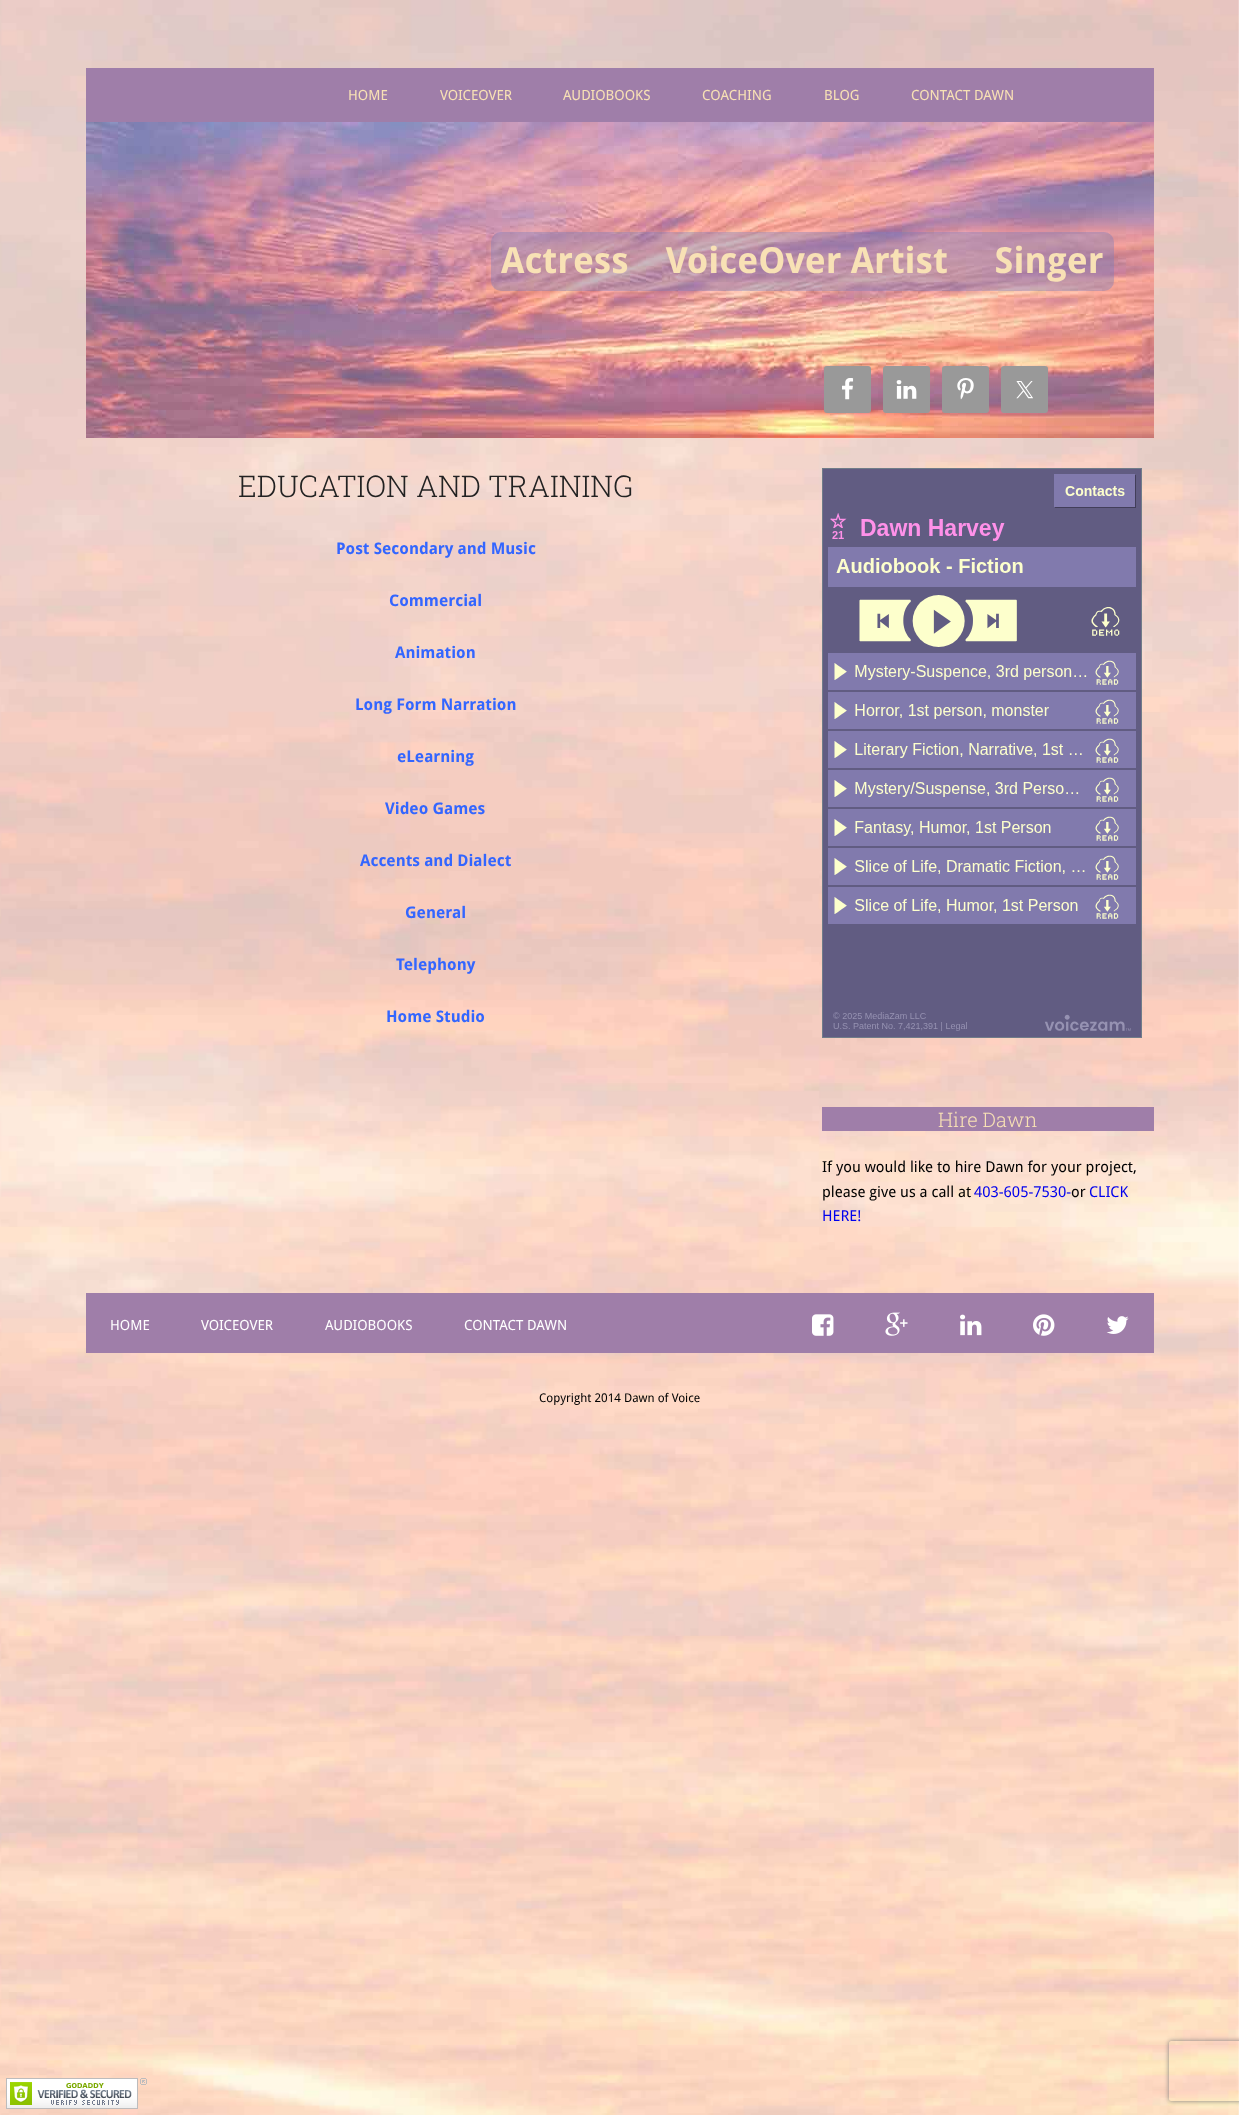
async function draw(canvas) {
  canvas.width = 1239
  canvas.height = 2115
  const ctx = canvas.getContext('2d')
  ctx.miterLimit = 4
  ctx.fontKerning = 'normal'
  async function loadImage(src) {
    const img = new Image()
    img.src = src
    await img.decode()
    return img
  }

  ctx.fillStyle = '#fff'
  ctx.fillRect(0, 0, 1239, 2115)
  ctx.drawImage(await loadImage('image0.png'), 0, 0, 1239, 2115)
  ctx.fillStyle = '#9f7ea9'
  ctx.fillRect(86, 68, 1068, 54)
  ctx.font = '14px Droid Sans'
  ctx.fillStyle = '#f8e1b5'
  ctx.fillText('HOME', 348, 100)
  ctx.fillText('VOICEOVER', 440, 100)
  ctx.fillText('AUDIOBOOKS', 563, 100)
  ctx.fillText('COACHING', 702, 100)
  ctx.fillText('BLOG', 824, 100)
  ctx.fillText('CONTACT DAWN', 911, 100)
  ctx.drawImage(await loadImage('image1.png'), 86, 122, 1068, 316)
  ctx.fillStyle = '#7a7dbc66'
  ctx.beginPath()
  ctx.roundRect(491, 232, 623, 59, 10)
  ctx.fill()
  ctx.font = 'bold 36px Droid Sans'
  ctx.fillStyle = '#f8e1b5'
  ctx.fillText('Actress    VoiceOver Artist     Singer', 501, 273)
  ctx.fillStyle = '#999'
  ctx.beginPath()
  ctx.roundRect(824, 366, 47, 47, 3)
  ctx.fill()
  ctx.drawImage(await loadImage('image2.png'), 842, 378, 12, 22)
  ctx.beginPath()
  ctx.roundRect(883, 366, 47, 47, 3)
  ctx.fill()
  ctx.drawImage(await loadImage('image3.png'), 896, 380, 21, 19)
  ctx.beginPath()
  ctx.roundRect(942, 366, 47, 47, 3)
  ctx.fill()
  ctx.drawImage(await loadImage('image4.png'), 957, 378, 17, 22)
  ctx.beginPath()
  ctx.roundRect(1001, 366, 47, 47, 3)
  ctx.fill()
  ctx.drawImage(await loadImage('image5.png'), 1016, 381, 17, 18)
  ctx.font = '300 30px Roboto Slab'
  ctx.fillStyle = '#222'
  ctx.fillText('EDUCATION AND TRAINING', 238, 497)
  ctx.font = 'bold 16px Droid Sans'
  ctx.fillStyle = '#36f'
  ctx.fillText('Post Secondary and Music', 336, 554)
  ctx.fillText('Commercial', 389, 606)
  ctx.fillText('Animation', 395, 658)
  ctx.fillText('Long Form Narration', 355, 710)
  ctx.fillText('eLearning', 397, 762)
  ctx.fillText('Video Games', 385, 814)
  ctx.fillText('Accents and Dialect', 360, 866)
  ctx.fillText('General', 405, 918)
  ctx.fillText('Telephony', 396, 970)
  ctx.fillText('Home Studio', 386, 1022)
  ctx.drawImage(await loadImage('image6.png'), 822, 468, 320, 570)
  ctx.fillStyle = '#9f7ea9'
  ctx.fillRect(822, 1107, 332, 24)
  ctx.font = '300 20px Roboto Slab'
  ctx.fillStyle = '#f8e1b5'
  ctx.fillText('Hire Dawn', 938, 1127)
  ctx.font = '15px Droid Sans'
  ctx.fillStyle = '#000'
  ctx.fillText('If you would like to hire Dawn for your project,', 822, 1172)
  ctx.fillText('please give us a call at', 822, 1197)
  ctx.fillStyle = '#00e'
  ctx.fillText('403-605-7530-', 974, 1197)
  ctx.fillStyle = '#000'
  ctx.fillText('or', 1071, 1197)
  ctx.fillStyle = '#00e'
  ctx.fillText('CLICK', 1089, 1197)
  ctx.fillText('HERE!', 822, 1221)
  ctx.fillStyle = '#9f7ea9'
  ctx.fillRect(86, 1293, 1068, 60)
  ctx.font = '14px Droid Sans'
  ctx.fillStyle = '#fff'
  ctx.fillText('HOME', 110, 1330)
  ctx.fillText('VOICEOVER', 201, 1330)
  ctx.fillText('AUDIOBOOKS', 325, 1330)
  ctx.fillText('CONTACT DAWN', 464, 1330)
  ctx.drawImage(await loadImage('image7.png'), 812, 1314, 22, 22)
  ctx.drawImage(await loadImage('image8.png'), 885, 1312, 23, 24)
  ctx.drawImage(await loadImage('image9.png'), 960, 1314, 22, 22)
  ctx.drawImage(await loadImage('image10.png'), 1033, 1314, 22, 22)
  ctx.drawImage(await loadImage('image11.png'), 1106, 1316, 23, 18)
  ctx.font = '12px Droid Sans'
  ctx.fillStyle = '#000'
  ctx.fillText('Copyright 2014 Dawn of Voice', 539, 1402)
  ctx.drawImage(await loadImage('image12.png'), 6, 2078, 141, 31)
  ctx.save()
  ctx.beginPath()
  ctx.moveTo(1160, 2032)
  ctx.lineTo(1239, 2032)
  ctx.lineTo(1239, 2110)
  ctx.lineTo(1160, 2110)
  ctx.closePath()
  ctx.moveTo(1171, 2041)
  ctx.lineTo(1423, 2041)
  ctx.bezierCurveTo(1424, 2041, 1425, 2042, 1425, 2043)
  ctx.lineTo(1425, 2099)
  ctx.bezierCurveTo(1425, 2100, 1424, 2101, 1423, 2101)
  ctx.lineTo(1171, 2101)
  ctx.bezierCurveTo(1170, 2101, 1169, 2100, 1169, 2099)
  ctx.lineTo(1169, 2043)
  ctx.bezierCurveTo(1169, 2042, 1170, 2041, 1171, 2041)
  ctx.closePath()
  ctx.clip('evenodd')
  ctx.fillStyle = '#808080'
  ctx.filter = 'blur(2.5px)'
  ctx.beginPath()
  ctx.roundRect(1169, 2041, 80, 60, 2)
  ctx.fill()
  ctx.filter = 'none'
  ctx.restore()
}

draw(document.querySelector('canvas'))
